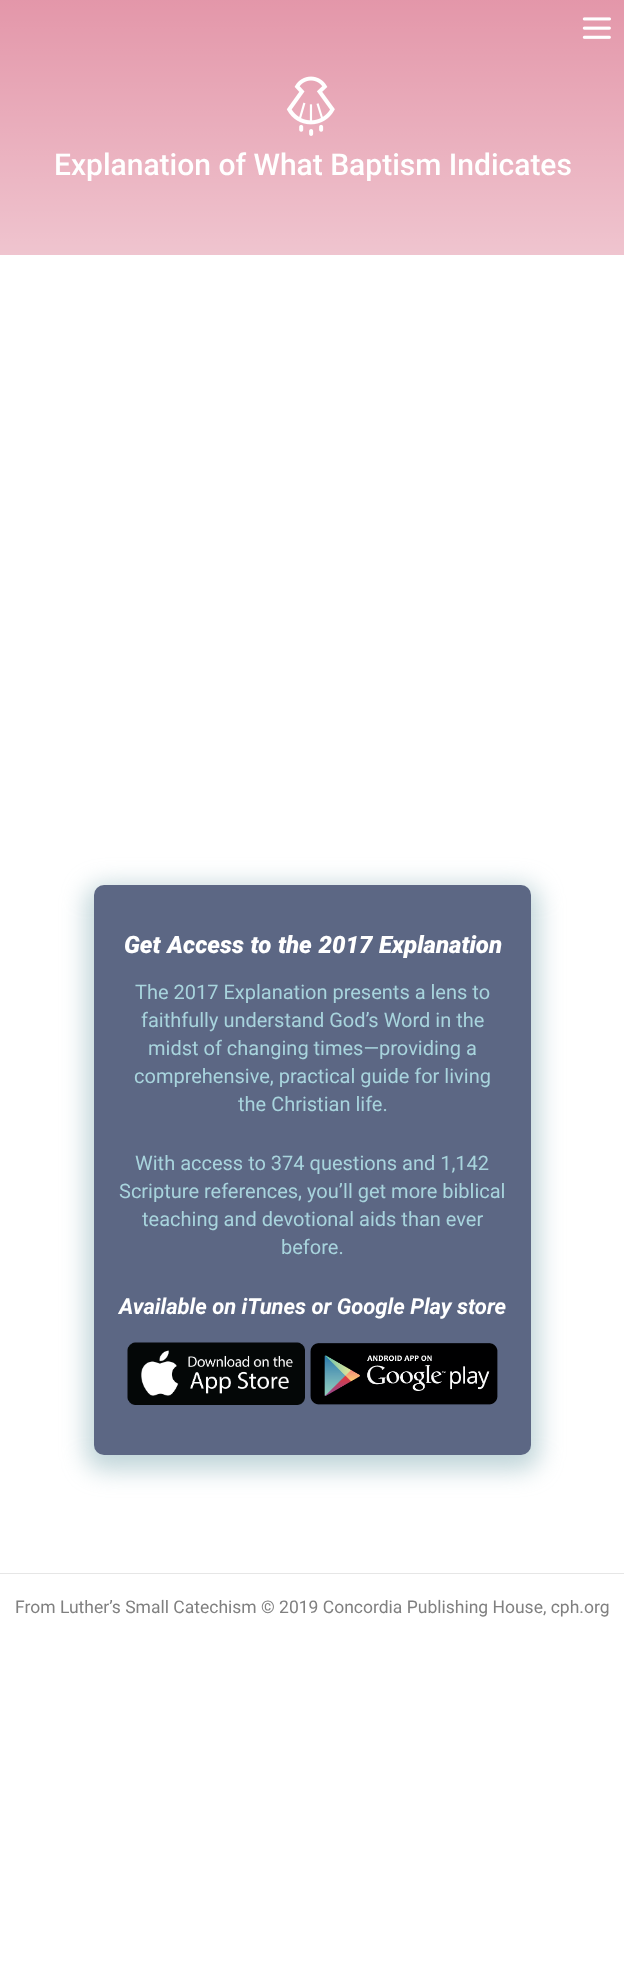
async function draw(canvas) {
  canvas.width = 624
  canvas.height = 1983
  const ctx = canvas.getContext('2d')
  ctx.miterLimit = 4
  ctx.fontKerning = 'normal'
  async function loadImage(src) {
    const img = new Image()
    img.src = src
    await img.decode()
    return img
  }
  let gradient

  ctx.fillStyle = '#fff'
  ctx.fillRect(0, 0, 624, 1983)
  ctx.fillStyle = '#d04d6d'
  ctx.fillRect(0, 0, 624, 255)
  ctx.drawImage(await loadImage('image1.png'), 286, 76, 49, 60)
  ctx.font = '500 30px Roboto'
  ctx.fillStyle = '#fff'
  ctx.fillText('Explanation of What Baptism Indicates', 54, 175)
  gradient = ctx.createLinearGradient(312, -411, 313, 1573)
  gradient.addColorStop(0, '#ffffff00')
  gradient.addColorStop(0.5, '#fff')
  ctx.fillStyle = gradient
  ctx.fillRect(0, 0, 624, 255)
  ctx.drawImage(await loadImage('image0.png'), 582, 17, 29, 22)
  ctx.fillStyle = '#91b6bd91'
  ctx.filter = 'blur(12.5px)'
  ctx.beginPath()
  ctx.roundRect(86, 885, 453, 585, 18)
  ctx.fill()
  ctx.filter = 'none'
  ctx.fillStyle = '#5c6784'
  ctx.beginPath()
  ctx.roundRect(94, 885, 437, 570, 10)
  ctx.fill()
  ctx.wordSpacing = '0.75px'
  ctx.font = 'italic 900 24px Roboto'
  ctx.fillStyle = '#fff'
  ctx.fillText('Get Access to the 2017 Explanation', 124, 953)
  ctx.wordSpacing = '0px'
  ctx.font = '20px Roboto'
  ctx.fillStyle = '#a8d4dd'
  ctx.fillText('The 2017 Explanation presents a lens to', 135, 999)
  ctx.fillText('faithfully understand God’s Word in the', 141, 1027)
  ctx.fillText('midst of changing times—providing a', 148, 1055)
  ctx.fillText('comprehensive, practical guide for living', 134, 1083)
  ctx.fillText('the Christian life.', 238, 1111)
  ctx.fillText('With access to 374 questions and 1,142', 135, 1170)
  ctx.fillText('Scripture references, you’ll get more biblical', 119, 1198)
  ctx.fillText('teaching and devotional aids than ever', 142, 1226)
  ctx.fillText('before.', 281, 1254)
  ctx.font = 'italic bold 22px Roboto'
  ctx.fillStyle = '#fff'
  ctx.fillText('Available on iTunes or Google Play store', 119, 1314)
  ctx.drawImage(await loadImage('image2.png'), 127, 1342, 178, 63)
  ctx.drawImage(await loadImage('image3.png'), 310, 1343, 188, 62)
  ctx.fillStyle = '#e6e6e6'
  ctx.fillRect(0, 1573, 624, 1)
  ctx.font = '17.5px Roboto'
  ctx.fillStyle = '#808080'
  ctx.fillText('From Luther’s Small Catechism © 2019 Concordia Publishing House, cph.org', 15, 1613)
}

draw(document.querySelector('canvas'))
